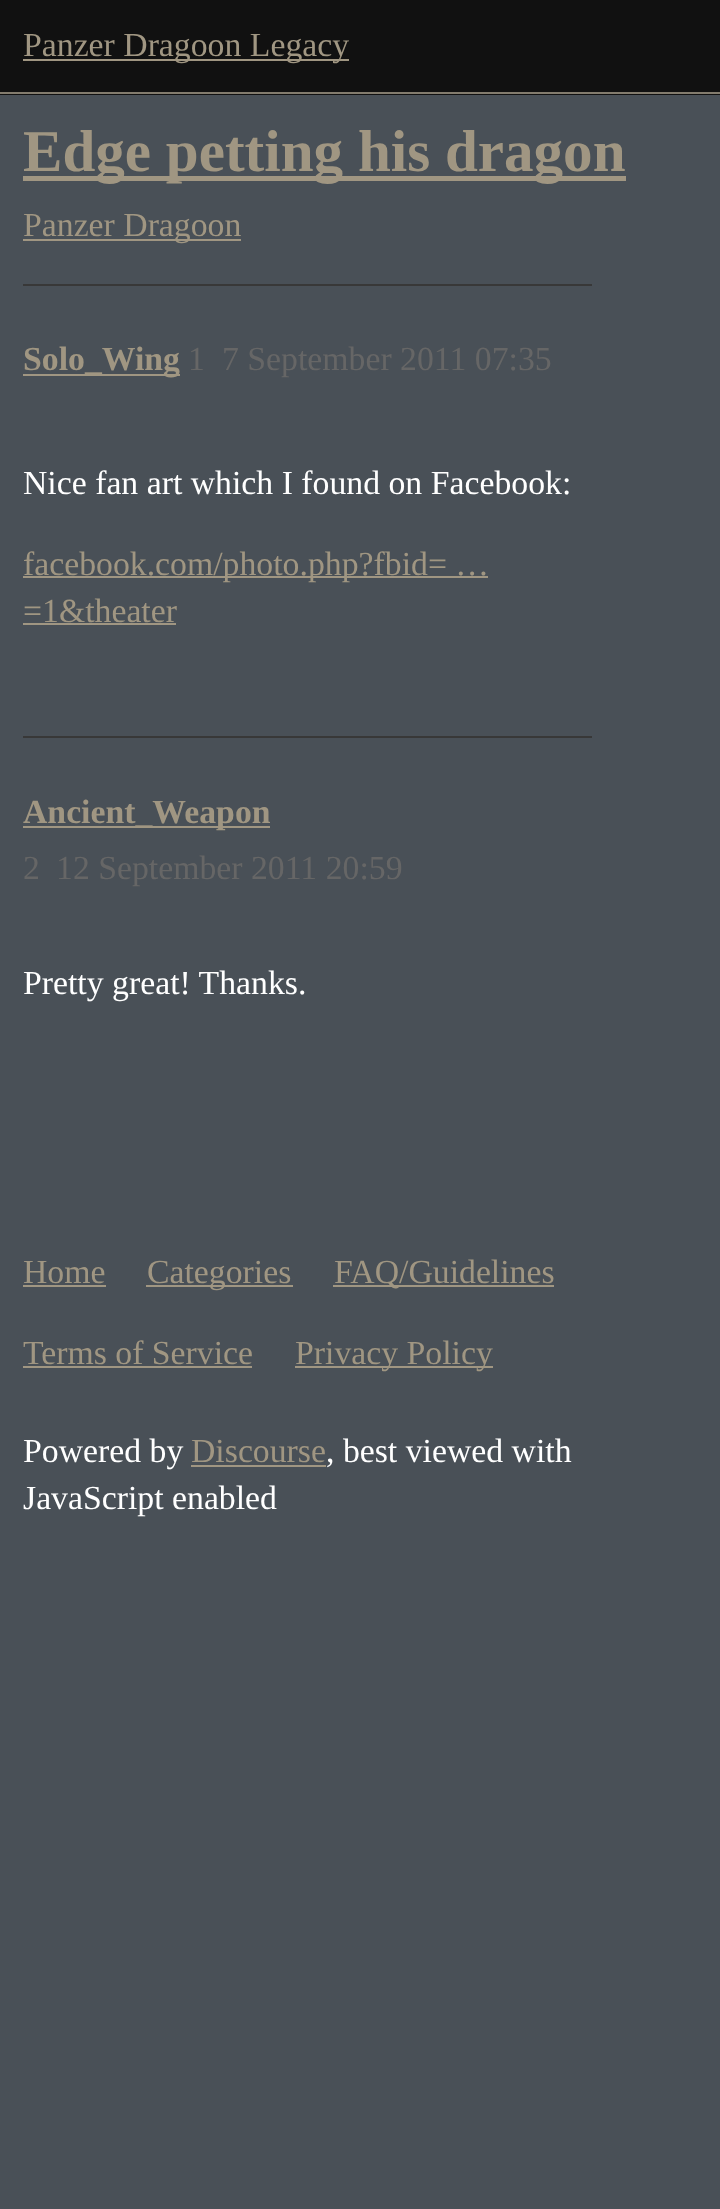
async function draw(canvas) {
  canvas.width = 720
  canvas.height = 2209
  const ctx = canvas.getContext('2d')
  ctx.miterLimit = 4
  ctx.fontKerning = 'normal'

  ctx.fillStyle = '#495057'
  ctx.fillRect(0, 0, 720, 2209)
  ctx.fillStyle = '#111'
  ctx.fillRect(0, 0, 720, 95)
  ctx.fillStyle = '#837c6e'
  ctx.fillRect(0, 92, 720, 2)
  ctx.fillStyle = '#a09682'
  ctx.fillRect(23, 59, 326, 2)
  ctx.font = '33.75px Liberation Serif'
  ctx.fillText('Panzer Dragoon Legacy', 23, 56)
  ctx.fillRect(23, 176, 603, 5)
  ctx.font = 'bold 59.1px Liberation Serif'
  ctx.fillText('Edge petting his dragon', 23, 171)
  ctx.fillRect(23, 239, 218, 2)
  ctx.font = '33.75px Liberation Serif'
  ctx.fillText('Panzer Dragoon', 23, 236)
  ctx.fillStyle = '#383838'
  ctx.fillRect(23, 284, 569, 2)
  ctx.fillStyle = '#a09682'
  ctx.fillRect(23, 374, 157, 2)
  ctx.font = 'bold 33.75px Liberation Serif'
  ctx.fillText('Solo_Wing', 23, 370)
  ctx.font = '33.75px Liberation Serif'
  ctx.fillStyle = '#666'
  ctx.fillText('1', 188, 370)
  ctx.fillText('7 September 2011 07:35', 222, 370)
  ctx.fillStyle = '#fff'
  ctx.fillText('Nice fan art which I found on Facebook:', 23, 494)
  ctx.fillStyle = '#a09682'
  ctx.fillRect(23, 576, 465, 2)
  ctx.fillText('facebook.com/photo.php?fbid= …', 23, 575)
  ctx.fillText('=1&theater', 23, 622)
  ctx.fillRect(23, 623, 153, 2)
  ctx.fillStyle = '#383838'
  ctx.fillRect(23, 736, 569, 2)
  ctx.fillStyle = '#a09682'
  ctx.fillRect(23, 826, 247, 2)
  ctx.font = 'bold 33.75px Liberation Serif'
  ctx.fillText('Ancient_Weapon', 23, 823)
  ctx.font = '33.75px Liberation Serif'
  ctx.fillStyle = '#666'
  ctx.fillText('2', 23, 879)
  ctx.fillText('12 September 2011 20:59', 56, 879)
  ctx.fillStyle = '#fff'
  ctx.fillText('Pretty great! Thanks.', 23, 994)
  ctx.fillStyle = '#a09682'
  ctx.fillText('Home', 23, 1283)
  ctx.fillRect(23, 1285, 83, 2)
  ctx.fillRect(146, 1285, 147, 2)
  ctx.fillText('Categories', 147, 1283)
  ctx.fillRect(333, 1285, 221, 2)
  ctx.fillText('FAQ/Guidelines', 334, 1283)
  ctx.fillText('Terms of Service', 23, 1364)
  ctx.fillRect(23, 1366, 229, 2)
  ctx.fillRect(295, 1366, 198, 2)
  ctx.fillText('Privacy Policy', 295, 1364)
  ctx.fillStyle = '#fff'
  ctx.fillText('Powered by', 23, 1462)
  ctx.fillStyle = '#a09682'
  ctx.fillText('Discourse', 191, 1462)
  ctx.fillRect(191, 1465, 135, 2)
  ctx.fillStyle = '#fff'
  ctx.fillText(', best viewed with', 326, 1462)
  ctx.fillText('JavaScript enabled', 23, 1509)
}

draw(document.querySelector('canvas'))
